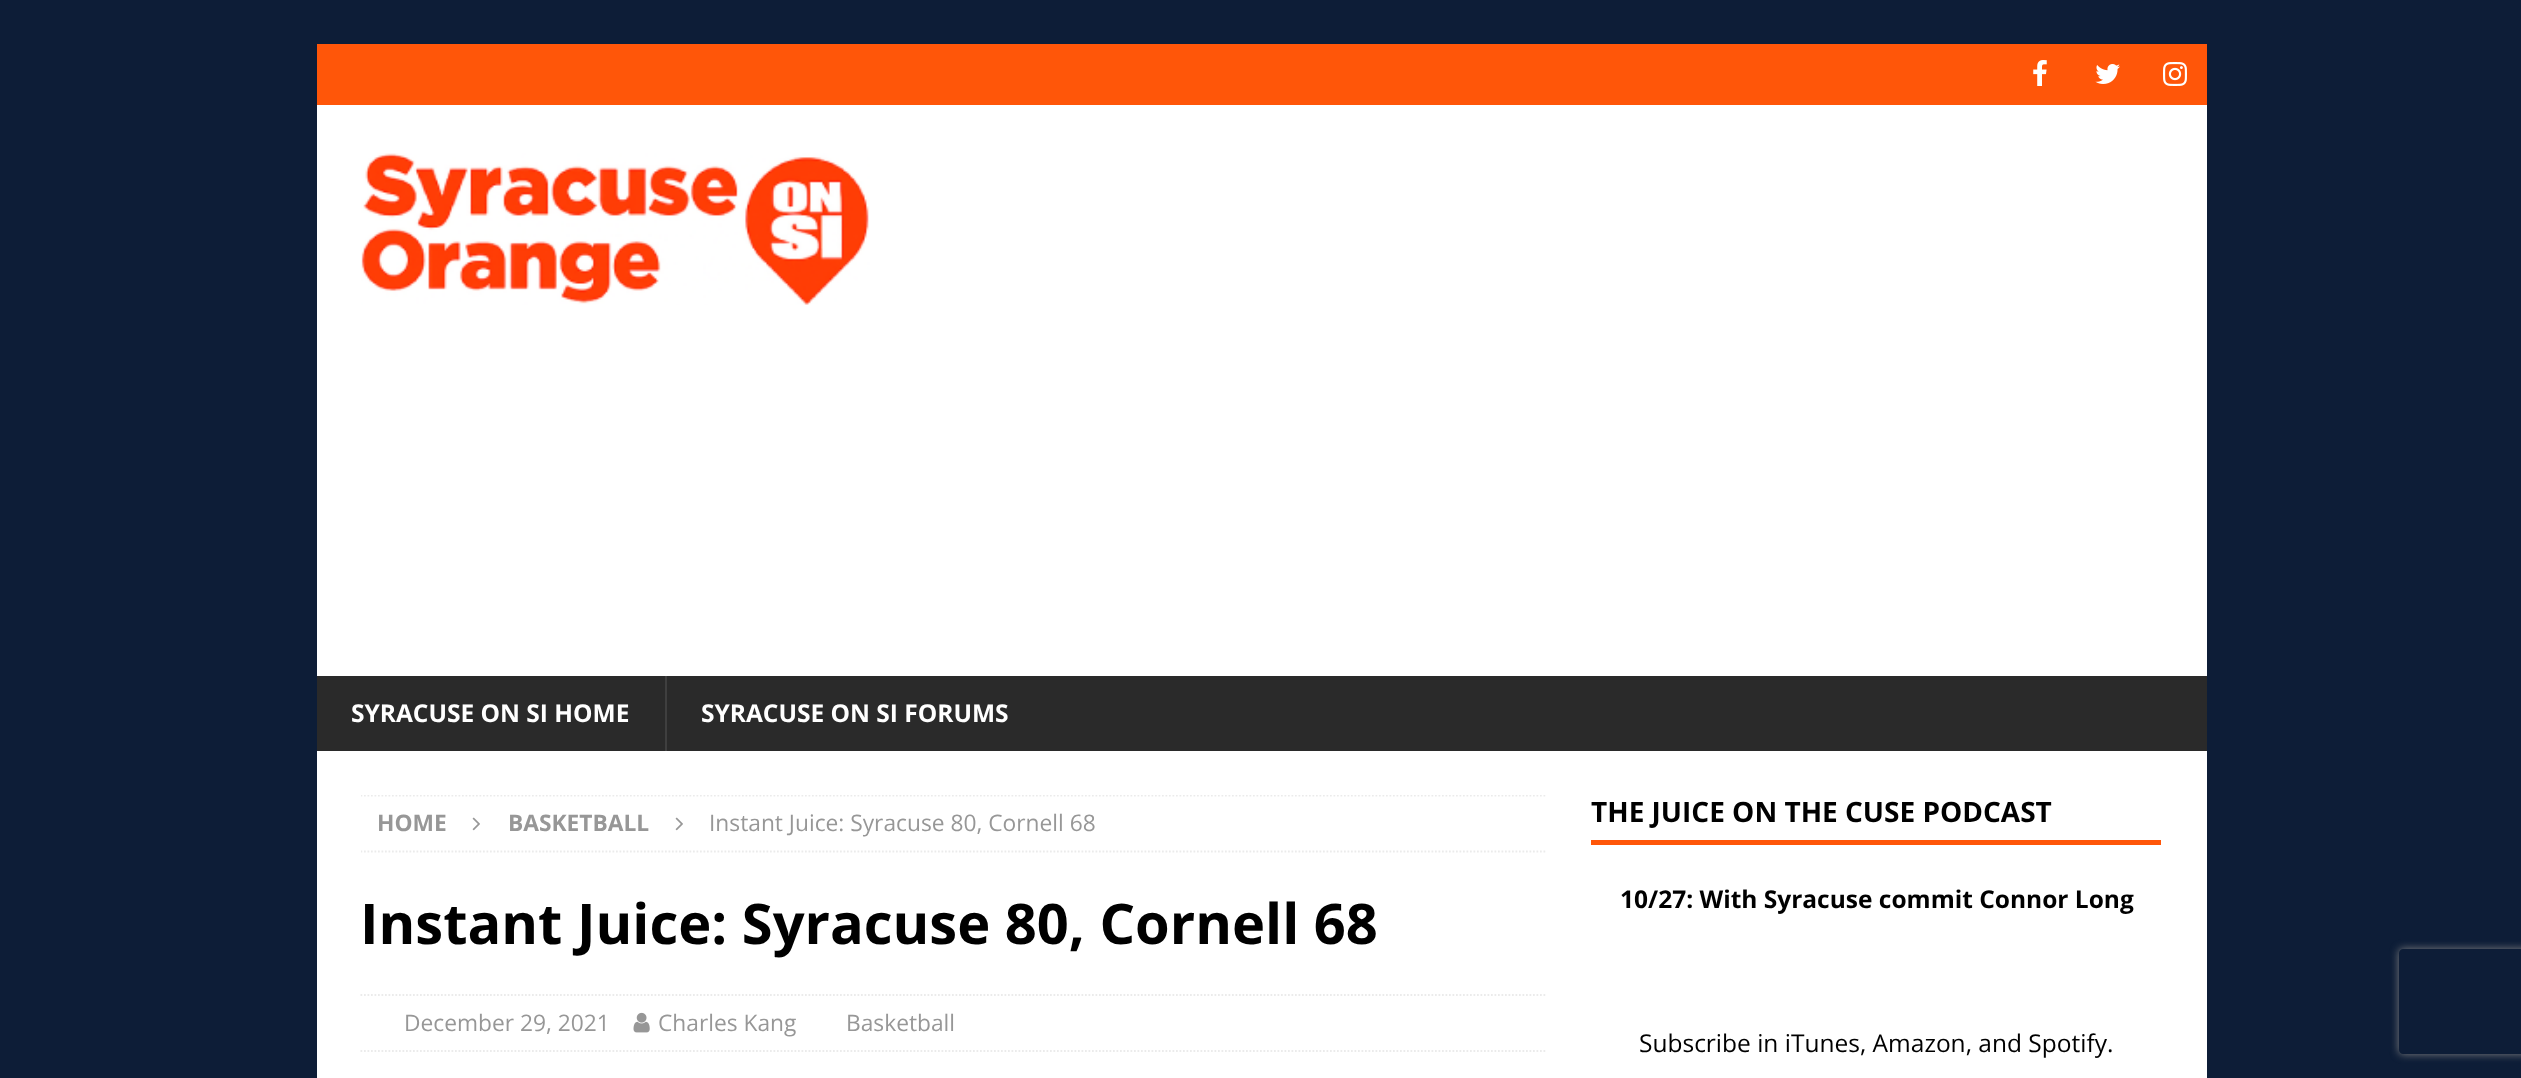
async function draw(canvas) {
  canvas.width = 2521
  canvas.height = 1078
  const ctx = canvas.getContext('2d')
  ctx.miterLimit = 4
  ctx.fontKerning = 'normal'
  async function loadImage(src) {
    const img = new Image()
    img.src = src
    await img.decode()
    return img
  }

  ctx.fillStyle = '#0d1d37'
  ctx.fillRect(0, 0, 2521, 1078)
  ctx.fillStyle = '#ff5609'
  ctx.fillRect(317, 44, 1890, 61)
  ctx.drawImage(await loadImage('image0.png'), 2033, 60, 14, 26)
  ctx.drawImage(await loadImage('image1.png'), 2095, 64, 25, 20)
  ctx.drawImage(await loadImage('image2.png'), 2163, 62, 24, 24)
  ctx.fillStyle = '#fff'
  ctx.fillRect(317, 105, 1890, 571)
  ctx.drawImage(await loadImage('image3.png'), 361, 153, 509, 152)
  ctx.fillStyle = '#2a2a2a'
  ctx.fillRect(317, 676, 1890, 75)
  ctx.font = 'bold 24.5px Open Sans'
  ctx.fillStyle = '#fff'
  ctx.fillText('SYRACUSE ON SI HOME', 351, 722)
  ctx.fillStyle = '#3f3f3f'
  ctx.fillRect(665, 676, 2, 75)
  ctx.fillStyle = '#fff'
  ctx.fillText('SYRACUSE ON SI FORUMS', 701, 722)
  ctx.fillRect(317, 751, 1890, 327)
  ctx.save()
  ctx.beginPath()
  ctx.rect(361, 795, 1186, 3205)
  ctx.clip()
  ctx.beginPath()
  ctx.moveTo(360.5, 795.5)
  ctx.lineTo(1547, 795.5)
  ctx.strokeStyle = '#ebebeb'
  ctx.lineWidth = 1.8
  ctx.setLineDash([1.75, 1.75])
  ctx.stroke()
  ctx.beginPath()
  ctx.moveTo(360.5, 851.5)
  ctx.lineTo(1547, 851.5)
  ctx.stroke()
  ctx.restore()
  ctx.font = 'bold 22.75px Open Sans'
  ctx.fillStyle = '#979797'
  ctx.fillText('HOME', 377, 831)
  ctx.drawImage(await loadImage('image4.png'), 472, 817, 8, 14)
  ctx.fillText('BASKETBALL', 508, 831)
  ctx.drawImage(await loadImage('image4.png'), 675, 817, 8, 14)
  ctx.font = '22.75px Open Sans'
  ctx.fillText('Instant Juice: Syracuse 80, Cornell 68', 709, 831)
  ctx.font = 'bold 56px Open Sans'
  ctx.fillStyle = '#000'
  ctx.fillText('Instant Juice: Syracuse 80, Cornell 68', 360, 944)
  ctx.beginPath()
  ctx.moveTo(360.5, 995)
  ctx.lineTo(1547, 995)
  ctx.strokeStyle = '#ebebeb'
  ctx.lineWidth = 1.8
  ctx.setLineDash([1.75, 1.75])
  ctx.stroke()
  ctx.beginPath()
  ctx.moveTo(360.5, 1051)
  ctx.lineTo(1547, 1051)
  ctx.stroke()
  ctx.font = '22.75px Open Sans'
  ctx.fillStyle = '#979797'
  ctx.fillText('December 29, 2021', 404, 1031)
  ctx.drawImage(await loadImage('image5.png'), 633, 1012, 17, 21)
  ctx.fillText('Charles Kang', 658, 1031)
  ctx.fillText('Basketball', 846, 1031)
  ctx.fillStyle = '#ff5609'
  ctx.fillRect(1591, 840, 570, 5)
  ctx.font = 'bold 28px Open Sans'
  ctx.fillStyle = '#000'
  ctx.fillText('THE JUICE ON THE CUSE PODCAST', 1591, 822)
  ctx.font = 'bold 24.5px Open Sans'
  ctx.fillText('10/27: With Syracuse commit Connor Long', 1620, 908)
  ctx.font = '24.5px Open Sans'
  ctx.fillText('Subscribe in iTunes, Amazon, and Spotify.', 1639, 1052)
  ctx.save()
  ctx.beginPath()
  ctx.moveTo(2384, 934)
  ctx.lineTo(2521, 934)
  ctx.lineTo(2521, 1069)
  ctx.lineTo(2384, 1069)
  ctx.closePath()
  ctx.moveTo(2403, 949)
  ctx.lineTo(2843, 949)
  ctx.bezierCurveTo(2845, 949, 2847, 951, 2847, 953)
  ctx.lineTo(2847, 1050)
  ctx.bezierCurveTo(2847, 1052, 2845, 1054, 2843, 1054)
  ctx.lineTo(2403, 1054)
  ctx.bezierCurveTo(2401, 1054, 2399, 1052, 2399, 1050)
  ctx.lineTo(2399, 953)
  ctx.bezierCurveTo(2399, 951, 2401, 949, 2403, 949)
  ctx.closePath()
  ctx.clip('evenodd')
  ctx.fillStyle = '#808080'
  ctx.filter = 'blur(4.5px)'
  ctx.beginPath()
  ctx.roundRect(2399, 949, 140, 105, 4)
  ctx.fill()
  ctx.filter = 'none'
  ctx.restore()
}

draw(document.querySelector('canvas'))
